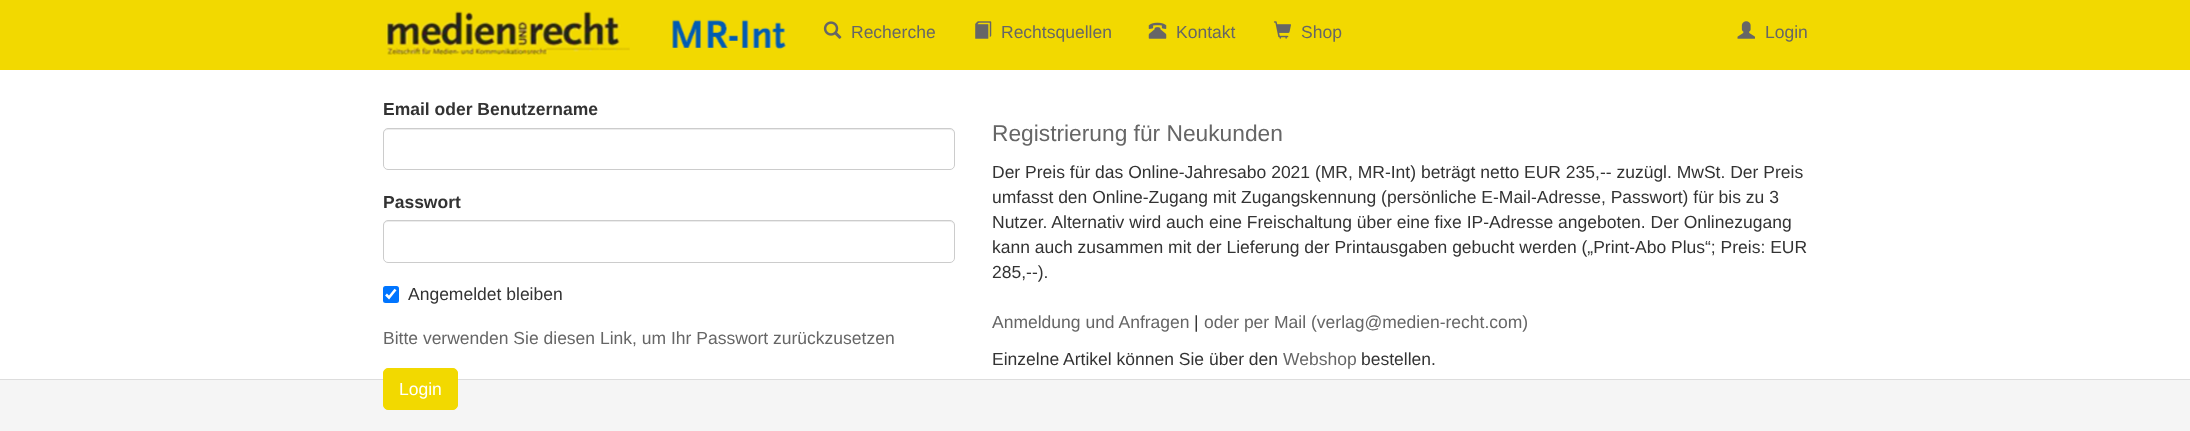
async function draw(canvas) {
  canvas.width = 2190
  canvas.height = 431
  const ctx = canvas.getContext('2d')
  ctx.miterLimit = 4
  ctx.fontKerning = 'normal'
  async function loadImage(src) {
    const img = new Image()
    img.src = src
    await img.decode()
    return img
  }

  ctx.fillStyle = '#fff'
  ctx.fillRect(0, 0, 2190, 431)
  ctx.fillStyle = '#f2d900'
  ctx.fillRect(0, 0, 2190, 70)
  ctx.drawImage(await loadImage('image0.png'), 386, 11, 244, 44)
  ctx.drawImage(await loadImage('image1.png'), 672, 19, 114, 30)
  ctx.drawImage(await loadImage('image2.png'), 823, 21, 19, 18)
  ctx.font = '17.5px Liberation Sans'
  ctx.fillStyle = '#666'
  ctx.fillText('Recherche', 851, 38)
  ctx.drawImage(await loadImage('image3.png'), 975, 21, 17, 18)
  ctx.fillText('Rechtsquellen', 1001, 38)
  ctx.drawImage(await loadImage('image4.png'), 1148, 22, 19, 17)
  ctx.fillText('Kontakt', 1176, 38)
  ctx.drawImage(await loadImage('image5.png'), 1273, 21, 18, 18)
  ctx.fillText('Shop', 1301, 38)
  ctx.drawImage(await loadImage('image6.png'), 1737, 21, 18, 18)
  ctx.fillText('Login', 1765, 38)
  ctx.font = 'bold 17.5px Liberation Sans'
  ctx.fillStyle = '#333'
  ctx.fillText('Email oder Benutzername', 383, 115)
  ctx.fillStyle = '#ececec'
  ctx.beginPath()
  ctx.moveTo(388, 130)
  ctx.lineTo(950, 130)
  ctx.bezierCurveTo(952, 130, 954, 132, 954, 134)
  ctx.bezierCurveTo(954, 131, 953, 129, 950, 129)
  ctx.lineTo(388, 129)
  ctx.bezierCurveTo(385, 129, 384, 131, 384, 134)
  ctx.bezierCurveTo(384, 132, 385, 130, 388, 130)
  ctx.closePath()
  ctx.fill()
  ctx.beginPath()
  ctx.roundRect(383.5, 128.5, 571, 41, 4.5)
  ctx.strokeStyle = '#ccc'
  ctx.stroke()
  ctx.fillStyle = '#333'
  ctx.fillText('Passwort', 383, 208)
  ctx.fillStyle = '#ececec'
  ctx.beginPath()
  ctx.moveTo(388, 222)
  ctx.lineTo(950, 222)
  ctx.bezierCurveTo(952, 222, 954, 224, 954, 226)
  ctx.bezierCurveTo(954, 223, 953, 221, 950, 221)
  ctx.lineTo(388, 221)
  ctx.bezierCurveTo(385, 221, 384, 223, 384, 226)
  ctx.bezierCurveTo(384, 224, 385, 222, 388, 222)
  ctx.closePath()
  ctx.fill()
  ctx.beginPath()
  ctx.roundRect(383.5, 220.5, 571, 42, 4.5)
  ctx.stroke()
  ctx.fillStyle = '#0075ff'
  ctx.beginPath()
  ctx.roundRect(383, 286, 16, 17, 2.5)
  ctx.fill()
  ctx.beginPath()
  ctx.moveTo(386, 294.5)
  ctx.lineTo(389, 297.5)
  ctx.lineTo(395.5, 289.5)
  ctx.strokeStyle = '#fff'
  ctx.lineWidth = 2.6
  ctx.stroke()
  ctx.font = '17.5px Liberation Sans'
  ctx.fillStyle = '#333'
  ctx.fillText('Angemeldet bleiben', 408, 300)
  ctx.fillStyle = '#666'
  ctx.fillText('Bitte verwenden Sie diesen Link, um Ihr Passwort zurückzusetzen', 383, 344)
  ctx.fillStyle = '#f5f5f5'
  ctx.fillRect(0, 380, 2190, 51)
  ctx.fillStyle = '#ddd'
  ctx.fillRect(0, 379, 2190, 1)
  ctx.fillStyle = '#f2d900'
  ctx.beginPath()
  ctx.roundRect(383.5, 368.5, 74, 41, 4.5)
  ctx.fill()
  ctx.strokeStyle = '#f2d900'
  ctx.lineWidth = 1
  ctx.stroke()
  ctx.fillStyle = '#fff'
  ctx.fillText('Login', 399, 395)
  ctx.font = '22.75px Liberation Sans'
  ctx.fillStyle = '#666'
  ctx.fillText('Registrierung für Neukunden', 992, 141)
  ctx.font = '17.5px Liberation Sans'
  ctx.fillStyle = '#333'
  ctx.fillText('Der Preis für das Online-Jahresabo 2021 (MR, MR-Int) beträgt netto EUR 235,-- zuzügl. MwSt. Der Preis', 992, 178)
  ctx.fillText('umfasst den Online-Zugang mit Zugangskennung (persönliche E-Mail-Adresse, Passwort) für bis zu 3', 992, 203)
  ctx.fillText('Nutzer. Alternativ wird auch eine Freischaltung über eine fixe IP-Adresse angeboten. Der Onlinezugang', 992, 228)
  ctx.fillText('kann auch zusammen mit der Lieferung der Printausgaben gebucht werden („Print-Abo Plus“; Preis: EUR', 992, 253)
  ctx.fillText('285,--).', 992, 278)
  ctx.fillStyle = '#666'
  ctx.fillText('Anmeldung und Anfragen', 992, 328)
  ctx.fillStyle = '#333'
  ctx.fillText('|', 1194, 328)
  ctx.fillStyle = '#666'
  ctx.fillText('oder per Mail (verlag@medien-recht.com)', 1204, 328)
  ctx.fillStyle = '#333'
  ctx.fillText('Einzelne Artikel können Sie über den', 992, 365)
  ctx.fillStyle = '#666'
  ctx.fillText('Webshop', 1283, 365)
  ctx.fillStyle = '#333'
  ctx.fillText('bestellen.', 1361, 365)
}

draw(document.querySelector('canvas'))
